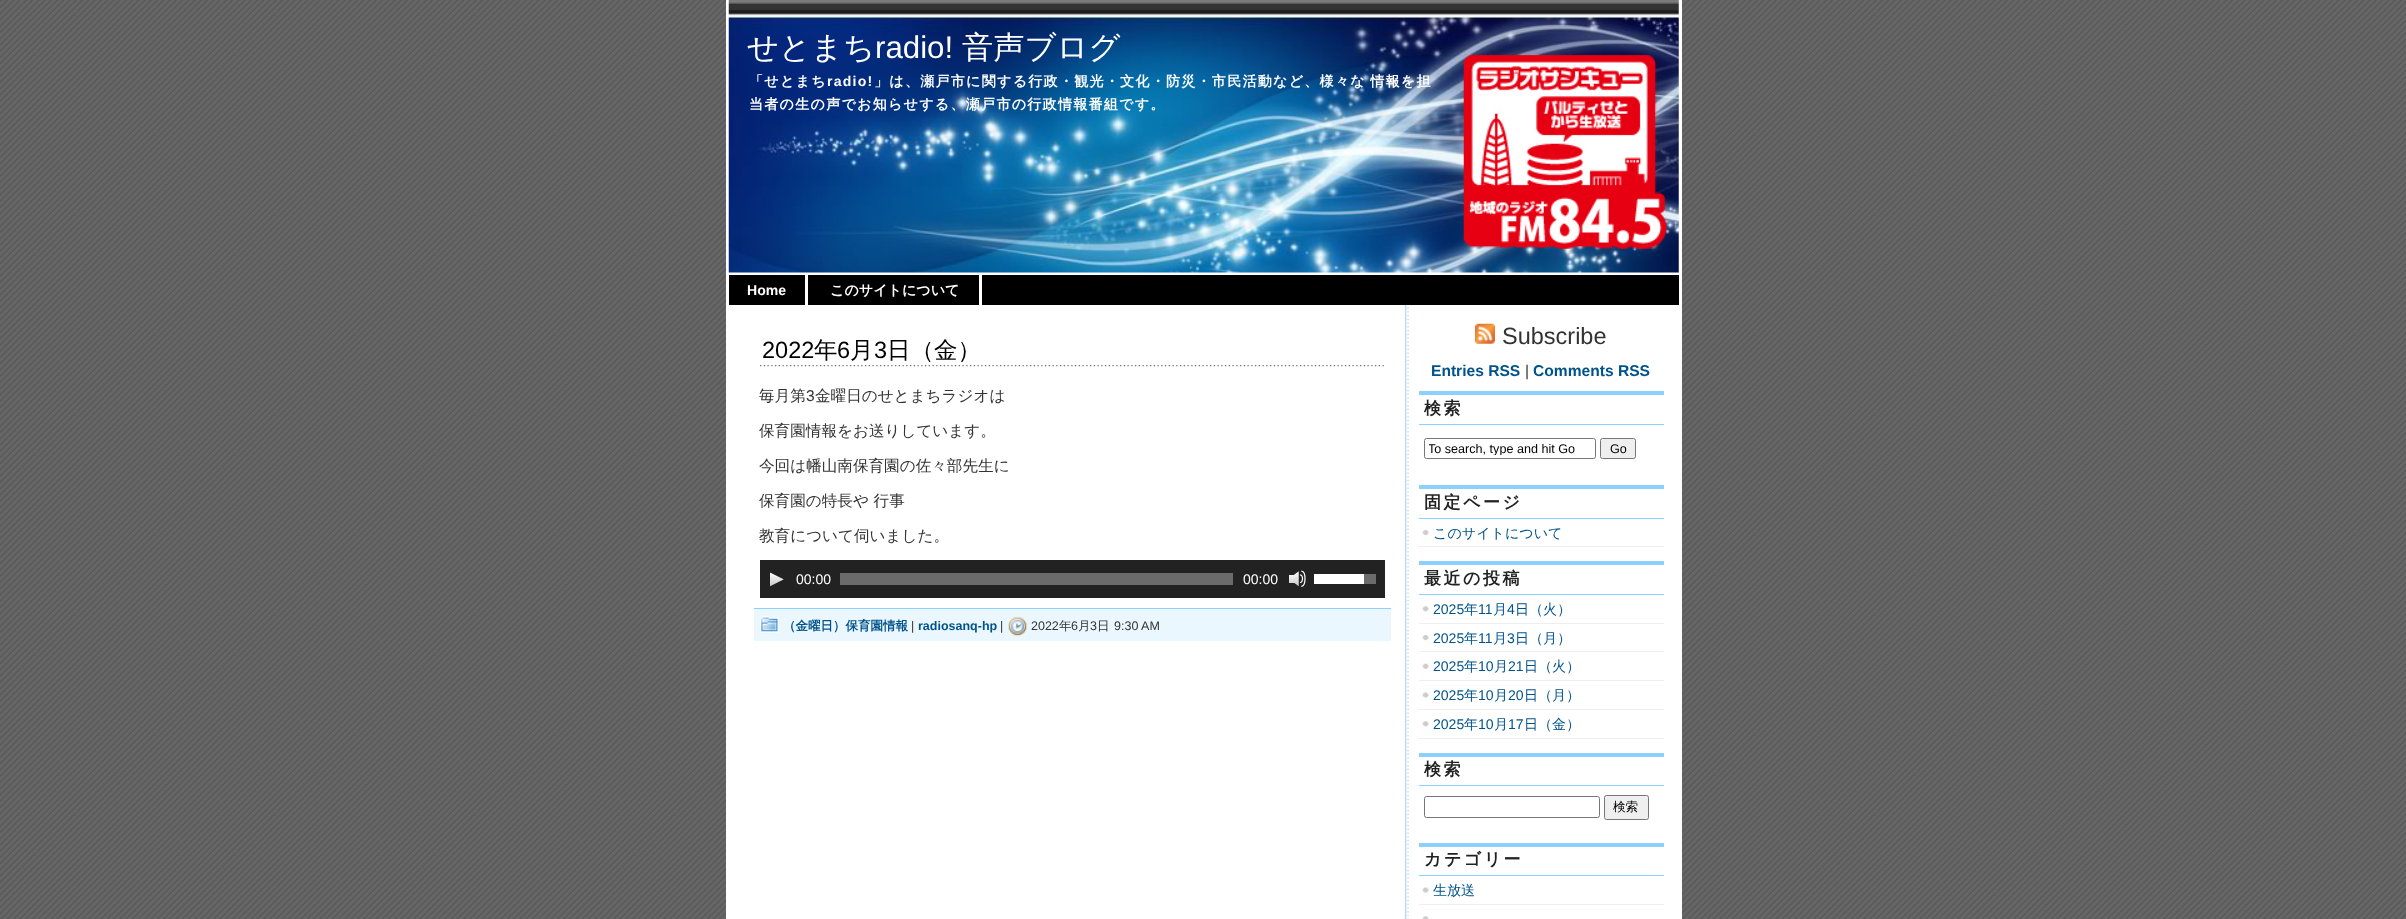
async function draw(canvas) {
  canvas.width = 2406
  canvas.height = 919
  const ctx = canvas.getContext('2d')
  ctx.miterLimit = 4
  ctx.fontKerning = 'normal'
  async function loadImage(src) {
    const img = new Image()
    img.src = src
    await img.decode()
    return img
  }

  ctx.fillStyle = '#fff'
  ctx.fillRect(0, 0, 2406, 919)
  ctx.drawImage(await loadImage('image0.png'), 0, 0, 2406, 919)
  ctx.fillRect(726, 0, 956, 919)
  ctx.drawImage(await loadImage('image1.png'), 1404, 305, 5, 614)
  ctx.drawImage(await loadImage('image2.png'), 728, 0, 951, 17)
  ctx.drawImage(await loadImage('image3.png'), 728, 16, 951, 257)
  ctx.font = '500 31.25px WenQuanYi Zen Hei'
  ctx.fillText('せとまち', 747, 58)
  ctx.font = '31.25px Liberation Sans'
  ctx.fillText('radio!', 875, 58)
  ctx.font = '500 31.25px WenQuanYi Zen Hei'
  ctx.fillText('音声ブログ', 962, 58)
  ctx.letterSpacing = '1.25px'
  ctx.font = 'bold 14.05px WenQuanYi Zen Hei'
  ctx.fillText('「せとまち', 749, 86)
  ctx.font = 'bold 14.05px Liberation Sans'
  ctx.fillText('radio!', 827, 86)
  ctx.wordSpacing = '-1px'
  ctx.font = 'bold 14.05px WenQuanYi Zen Hei'
  ctx.fillText('」は、瀬戸市に関する行政・観光・文化・防災・市民活動など、様々な 情報を担', 874, 86)
  ctx.wordSpacing = '0px'
  ctx.fillText('当者の生の声でお知らせする、瀬戸市の行政情報番組です。', 749, 109)
  ctx.fillStyle = '#000'
  ctx.fillRect(729, 275, 950, 30)
  ctx.letterSpacing = '0px'
  ctx.font = 'bold 14.05px Liberation Sans'
  ctx.fillStyle = '#fff'
  ctx.fillText('Home', 747, 295)
  ctx.fillRect(805, 275, 3, 30)
  ctx.font = 'bold 14.05px WenQuanYi Zen Hei'
  ctx.fillText('このサイトについて', 830, 295)
  ctx.fillRect(979, 275, 3, 30)
  ctx.drawImage(await loadImage('image4.png'), 760, 365, 624, 2)
  ctx.font = '23.5px Liberation Sans'
  ctx.fillStyle = '#000'
  ctx.fillText('2022', 762, 358)
  ctx.font = '500 23.5px WenQuanYi Zen Hei'
  ctx.fillText('年', 814, 358)
  ctx.font = '23.5px Liberation Sans'
  ctx.fillText('6', 837, 358)
  ctx.font = '500 23.5px WenQuanYi Zen Hei'
  ctx.fillText('月', 850, 358)
  ctx.font = '23.5px Liberation Sans'
  ctx.fillText('3', 874, 358)
  ctx.font = '500 23.5px WenQuanYi Zen Hei'
  ctx.fillText('日（金）', 887, 358)
  ctx.font = '500 15.6px WenQuanYi Zen Hei'
  ctx.fillStyle = '#333'
  ctx.fillText('毎月第', 759, 401)
  ctx.font = '15.6px Liberation Sans'
  ctx.fillText('3', 806, 401)
  ctx.font = '500 15.6px WenQuanYi Zen Hei'
  ctx.fillText('金曜日のせとまちラジオは', 815, 401)
  ctx.fillText('保育園情報をお送りしています。', 759, 436)
  ctx.fillText('今回は幡山南保育園の佐々部先生に', 759, 471)
  ctx.fillText('保育園の特長や 行事', 759, 506)
  ctx.fillText('教育について伺いました。', 759, 541)
  ctx.fillStyle = '#222'
  ctx.fillRect(760, 560, 625, 38)
  ctx.drawImage(await loadImage('image5.png'), 770, 572, 14, 15)
  ctx.font = '14px Liberation Sans'
  ctx.fillStyle = '#fff'
  ctx.fillText('00:00', 796, 584)
  ctx.fillStyle = '#6b6b6b'
  ctx.fillRect(840, 573, 393, 12)
  ctx.fillStyle = '#fff'
  ctx.fillText('00:00', 1243, 584)
  ctx.drawImage(await loadImage('image6.png'), 1289, 570, 17, 17)
  ctx.fillRect(1314, 574, 50, 10)
  ctx.fillStyle = '#6b6b6b'
  ctx.fillRect(1364, 574, 12, 10)
  ctx.fillStyle = '#ebf7ff'
  ctx.fillRect(754, 609, 637, 32)
  ctx.fillStyle = '#8cd1fd'
  ctx.fillRect(754, 608, 637, 1)
  ctx.drawImage(await loadImage('image7.png'), 760, 616, 19, 17)
  ctx.font = 'bold 12.5px WenQuanYi Zen Hei'
  ctx.fillStyle = '#00538a'
  ctx.fillText('（金曜日）保育園情報', 783, 630)
  ctx.font = '12.5px Liberation Sans'
  ctx.fillStyle = '#333'
  ctx.fillText('|', 911, 630)
  ctx.font = 'bold 12.5px Liberation Sans'
  ctx.fillStyle = '#00538a'
  ctx.fillText('radiosanq-hp', 918, 630)
  ctx.font = '12.5px Liberation Sans'
  ctx.fillStyle = '#333'
  ctx.fillText('|', 1000, 630)
  ctx.drawImage(await loadImage('image8.png'), 1008, 617, 19, 19)
  ctx.fillText('2022', 1031, 630)
  ctx.font = '500 12.5px WenQuanYi Zen Hei'
  ctx.fillText('年', 1059, 630)
  ctx.font = '12.5px Liberation Sans'
  ctx.fillText('6', 1071, 630)
  ctx.font = '500 12.5px WenQuanYi Zen Hei'
  ctx.fillText('月', 1078, 630)
  ctx.font = '12.5px Liberation Sans'
  ctx.fillText('3', 1090, 630)
  ctx.font = '500 12.5px WenQuanYi Zen Hei'
  ctx.fillText('日', 1097, 630)
  ctx.font = '12.5px Liberation Sans'
  ctx.fillText('9:30 AM', 1114, 630)
  ctx.drawImage(await loadImage('image9.png'), 1475, 323, 20, 21)
  ctx.font = '23.5px Liberation Sans'
  ctx.fillText('Subscribe', 1502, 344)
  ctx.font = 'bold 15.6px Liberation Sans'
  ctx.fillStyle = '#00538a'
  ctx.fillText('Entries RSS', 1431, 376)
  ctx.font = '15.6px Liberation Sans'
  ctx.fillStyle = '#333'
  ctx.fillText('|', 1525, 376)
  ctx.font = 'bold 15.6px Liberation Sans'
  ctx.fillStyle = '#00538a'
  ctx.fillText('Comments RSS', 1533, 376)
  ctx.fillStyle = '#8cd1fd'
  ctx.fillRect(1419, 391, 245, 4)
  ctx.fillRect(1419, 424, 245, 1)
  ctx.letterSpacing = '2.5px'
  ctx.font = 'bold 17px WenQuanYi Zen Hei'
  ctx.fillStyle = '#222'
  ctx.fillText('検索', 1424, 414)
  ctx.beginPath()
  ctx.roundRect(1424.5, 438.5, 171, 20, 2)
  ctx.strokeStyle = '#767676'
  ctx.stroke()
  ctx.save()
  ctx.beginPath()
  ctx.rect(1429, 441, 162, 14)
  ctx.clip()
  ctx.letterSpacing = '0px'
  ctx.font = '12.6px Liberation Sans'
  ctx.fillStyle = '#000'
  ctx.fillText('To search, type and hit Go', 1428, 453)
  ctx.restore()
  ctx.fillStyle = '#efefef'
  ctx.beginPath()
  ctx.roundRect(1600.5, 438.5, 35, 20, 2)
  ctx.fill()
  ctx.stroke()
  ctx.letterSpacing = '0px'
  ctx.font = '12.6px Liberation Sans'
  ctx.fillStyle = '#000'
  ctx.fillText('Go', 1610, 453)
  ctx.fillStyle = '#8cd1fd'
  ctx.fillRect(1419, 485, 245, 4)
  ctx.fillRect(1419, 518, 245, 1)
  ctx.letterSpacing = '2.5px'
  ctx.font = 'bold 17px WenQuanYi Zen Hei'
  ctx.fillStyle = '#222'
  ctx.fillText('固定ページ', 1424, 508)
  ctx.drawImage(await loadImage('image10.png'), 1422, 530, 7, 6)
  ctx.fillStyle = '#eee'
  ctx.fillRect(1419, 546, 245, 1)
  ctx.letterSpacing = '0px'
  ctx.font = '500 14.05px WenQuanYi Zen Hei'
  ctx.fillStyle = '#00538a'
  ctx.fillText('このサイトについて', 1433, 538)
  ctx.fillStyle = '#8cd1fd'
  ctx.fillRect(1419, 561, 245, 4)
  ctx.fillRect(1419, 594, 245, 1)
  ctx.letterSpacing = '2.5px'
  ctx.font = 'bold 17px WenQuanYi Zen Hei'
  ctx.fillStyle = '#222'
  ctx.fillText('最近の投稿', 1424, 584)
  ctx.drawImage(await loadImage('image11.png'), 1422, 606, 7, 6)
  ctx.fillStyle = '#eee'
  ctx.fillRect(1419, 623, 245, 1)
  ctx.letterSpacing = '0px'
  ctx.font = '14.05px Liberation Sans'
  ctx.fillStyle = '#00538a'
  ctx.fillText('2025', 1433, 614)
  ctx.font = '500 14.05px WenQuanYi Zen Hei'
  ctx.fillText('年', 1464, 614)
  ctx.font = '14.05px Liberation Sans'
  ctx.fillText('11', 1478, 614)
  ctx.font = '500 14.05px WenQuanYi Zen Hei'
  ctx.fillText('月', 1493, 614)
  ctx.font = '14.05px Liberation Sans'
  ctx.fillText('4', 1507, 614)
  ctx.font = '500 14.05px WenQuanYi Zen Hei'
  ctx.fillText('日（火）', 1515, 614)
  ctx.drawImage(await loadImage('image10.png'), 1422, 635, 7, 6)
  ctx.fillStyle = '#eee'
  ctx.fillRect(1419, 651, 245, 1)
  ctx.font = '14.05px Liberation Sans'
  ctx.fillStyle = '#00538a'
  ctx.fillText('2025', 1433, 643)
  ctx.font = '500 14.05px WenQuanYi Zen Hei'
  ctx.fillText('年', 1464, 643)
  ctx.font = '14.05px Liberation Sans'
  ctx.fillText('11', 1478, 643)
  ctx.font = '500 14.05px WenQuanYi Zen Hei'
  ctx.fillText('月', 1493, 643)
  ctx.font = '14.05px Liberation Sans'
  ctx.fillText('3', 1507, 643)
  ctx.font = '500 14.05px WenQuanYi Zen Hei'
  ctx.fillText('日（月）', 1515, 643)
  ctx.drawImage(await loadImage('image12.png'), 1422, 663, 7, 6)
  ctx.fillStyle = '#eee'
  ctx.fillRect(1419, 680, 245, 1)
  ctx.font = '14.05px Liberation Sans'
  ctx.fillStyle = '#00538a'
  ctx.fillText('2025', 1433, 671)
  ctx.font = '500 14.05px WenQuanYi Zen Hei'
  ctx.fillText('年', 1464, 671)
  ctx.font = '14.05px Liberation Sans'
  ctx.fillText('10', 1478, 671)
  ctx.font = '500 14.05px WenQuanYi Zen Hei'
  ctx.fillText('月', 1494, 671)
  ctx.font = '14.05px Liberation Sans'
  ctx.fillText('21', 1508, 671)
  ctx.font = '500 14.05px WenQuanYi Zen Hei'
  ctx.fillText('日（火）', 1524, 671)
  ctx.drawImage(await loadImage('image13.png'), 1422, 692, 7, 6)
  ctx.fillStyle = '#eee'
  ctx.fillRect(1419, 709, 245, 1)
  ctx.font = '14.05px Liberation Sans'
  ctx.fillStyle = '#00538a'
  ctx.fillText('2025', 1433, 700)
  ctx.font = '500 14.05px WenQuanYi Zen Hei'
  ctx.fillText('年', 1464, 700)
  ctx.font = '14.05px Liberation Sans'
  ctx.fillText('10', 1478, 700)
  ctx.font = '500 14.05px WenQuanYi Zen Hei'
  ctx.fillText('月', 1494, 700)
  ctx.font = '14.05px Liberation Sans'
  ctx.fillText('20', 1508, 700)
  ctx.font = '500 14.05px WenQuanYi Zen Hei'
  ctx.fillText('日（月）', 1524, 700)
  ctx.drawImage(await loadImage('image11.png'), 1422, 721, 7, 6)
  ctx.fillStyle = '#eee'
  ctx.fillRect(1419, 738, 245, 1)
  ctx.font = '14.05px Liberation Sans'
  ctx.fillStyle = '#00538a'
  ctx.fillText('2025', 1433, 729)
  ctx.font = '500 14.05px WenQuanYi Zen Hei'
  ctx.fillText('年', 1464, 729)
  ctx.font = '14.05px Liberation Sans'
  ctx.fillText('10', 1478, 729)
  ctx.font = '500 14.05px WenQuanYi Zen Hei'
  ctx.fillText('月', 1494, 729)
  ctx.font = '14.05px Liberation Sans'
  ctx.fillText('17', 1508, 729)
  ctx.font = '500 14.05px WenQuanYi Zen Hei'
  ctx.fillText('日（金）', 1524, 729)
  ctx.fillStyle = '#8cd1fd'
  ctx.fillRect(1419, 753, 245, 4)
  ctx.fillRect(1419, 785, 245, 1)
  ctx.letterSpacing = '2.5px'
  ctx.font = 'bold 17px WenQuanYi Zen Hei'
  ctx.fillStyle = '#222'
  ctx.fillText('検索', 1424, 775)
  ctx.beginPath()
  ctx.roundRect(1424.5, 796.5, 175, 21, 2)
  ctx.stroke()
  ctx.fillStyle = '#efefef'
  ctx.beginPath()
  ctx.roundRect(1604.5, 795.5, 44, 24, 2)
  ctx.fill()
  ctx.stroke()
  ctx.letterSpacing = '0px'
  ctx.font = '500 12.6px WenQuanYi Zen Hei'
  ctx.fillStyle = '#000'
  ctx.fillText('検索', 1613, 811)
  ctx.fillStyle = '#8cd1fd'
  ctx.fillRect(1419, 843, 245, 4)
  ctx.fillRect(1419, 875, 245, 1)
  ctx.letterSpacing = '2.5px'
  ctx.font = 'bold 17px WenQuanYi Zen Hei'
  ctx.fillStyle = '#222'
  ctx.fillText('カテゴリー', 1424, 865)
  ctx.drawImage(await loadImage('image13.png'), 1422, 887, 7, 6)
  ctx.fillStyle = '#eee'
  ctx.fillRect(1419, 904, 245, 1)
  ctx.letterSpacing = '0px'
  ctx.font = '500 14.05px WenQuanYi Zen Hei'
  ctx.fillStyle = '#00538a'
  ctx.fillText('生放送', 1433, 895)
  ctx.drawImage(await loadImage('image14.png'), 1422, 916, 7, 3)
}

draw(document.querySelector('canvas'))
